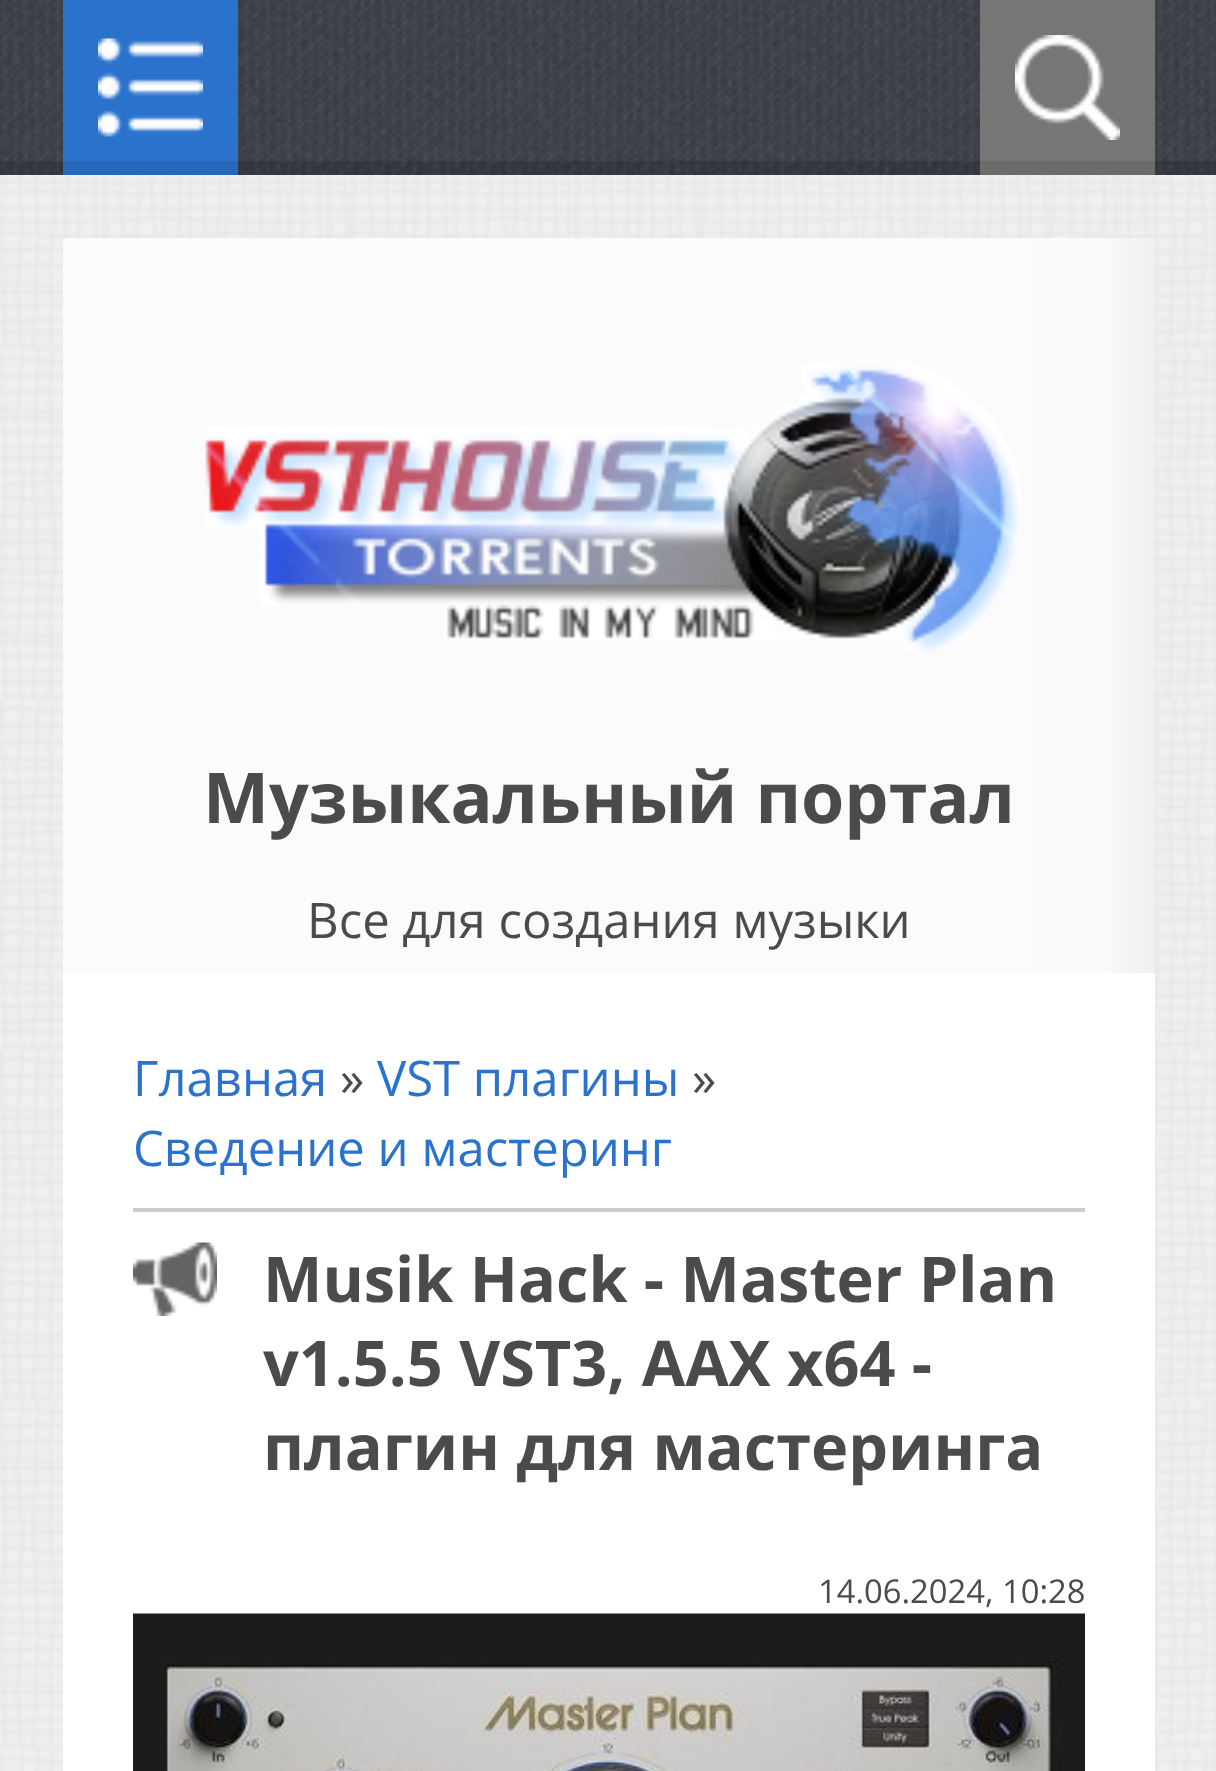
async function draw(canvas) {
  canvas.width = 1216
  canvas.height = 1771
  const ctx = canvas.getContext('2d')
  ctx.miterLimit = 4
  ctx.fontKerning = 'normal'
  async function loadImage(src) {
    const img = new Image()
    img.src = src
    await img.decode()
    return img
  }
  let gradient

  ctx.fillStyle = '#fff'
  ctx.fillRect(0, 0, 1216, 1771)
  ctx.drawImage(await loadImage('image0.png'), 0, 175, 1216, 1596)
  ctx.drawImage(await loadImage('image1.png'), 0, 0, 1216, 175)
  ctx.fillStyle = '#00000024'
  ctx.fillRect(0, 161, 1216, 14)
  ctx.fillStyle = '#2a72cc'
  ctx.fillRect(63, 0, 175, 161)
  ctx.drawImage(await loadImage('image2.png'), 98, 38, 105, 99)
  ctx.fillStyle = '#2668ba'
  ctx.fillRect(63, 161, 175, 14)
  ctx.fillStyle = '#767676'
  ctx.fillRect(980, 0, 175, 161)
  ctx.drawImage(await loadImage('image3.png'), 1015, 35, 105, 105)
  ctx.fillStyle = '#6b6b6b'
  ctx.fillRect(980, 161, 175, 14)
  gradient = ctx.createLinearGradient(1155, 606, 63, 606)
  gradient.addColorStop(0, '#efefef')
  gradient.addColorStop(0.05, '#fafafa')
  gradient.addColorStop(0.9, '#fbfbfb')
  ctx.fillStyle = gradient
  ctx.fillRect(63, 238, 1092, 735)
  ctx.drawImage(await loadImage('image4.png'), 205, 361, 816, 291)
  ctx.font = 'bold 70px Open Sans'
  ctx.fillStyle = '#4b4b4b'
  ctx.fillText('Музыкальный портал', 203, 823)
  ctx.font = '49px Open Sans'
  ctx.fillText('Все для создания музыки', 307, 938)
  ctx.fillStyle = '#fff'
  ctx.fillRect(63, 973, 1092, 798)
  ctx.fillStyle = '#2a72cc'
  ctx.fillText('Главная', 133, 1096)
  ctx.fillStyle = '#4b4b4b'
  ctx.fillText('»', 340, 1096)
  ctx.fillStyle = '#2a72cc'
  ctx.fillText('VST плагины', 377, 1096)
  ctx.fillStyle = '#4b4b4b'
  ctx.fillText('»', 692, 1096)
  ctx.fillStyle = '#2a72cc'
  ctx.fillText('Сведение и мастеринг', 133, 1166)
  ctx.fillStyle = '#ccc'
  ctx.fillRect(133, 1208, 952, 4)
  ctx.drawImage(await loadImage('image5.png'), 133, 1242, 84, 74)
  ctx.font = 'bold 63px Open Sans'
  ctx.fillStyle = '#4b4b4b'
  ctx.fillText('Musik Hack - Master Plan', 263, 1302)
  ctx.fillText('v1.5.5 VST3, AAX x64 -', 263, 1386)
  ctx.fillText('плагин для мастеринга', 263, 1470)
  ctx.font = '32.75px Open Sans'
  ctx.fillText('14.06.2024, 10:28', 818, 1603)
  ctx.drawImage(await loadImage('image6.png'), 133, 1613, 952, 158)
}

draw(document.querySelector('canvas'))
